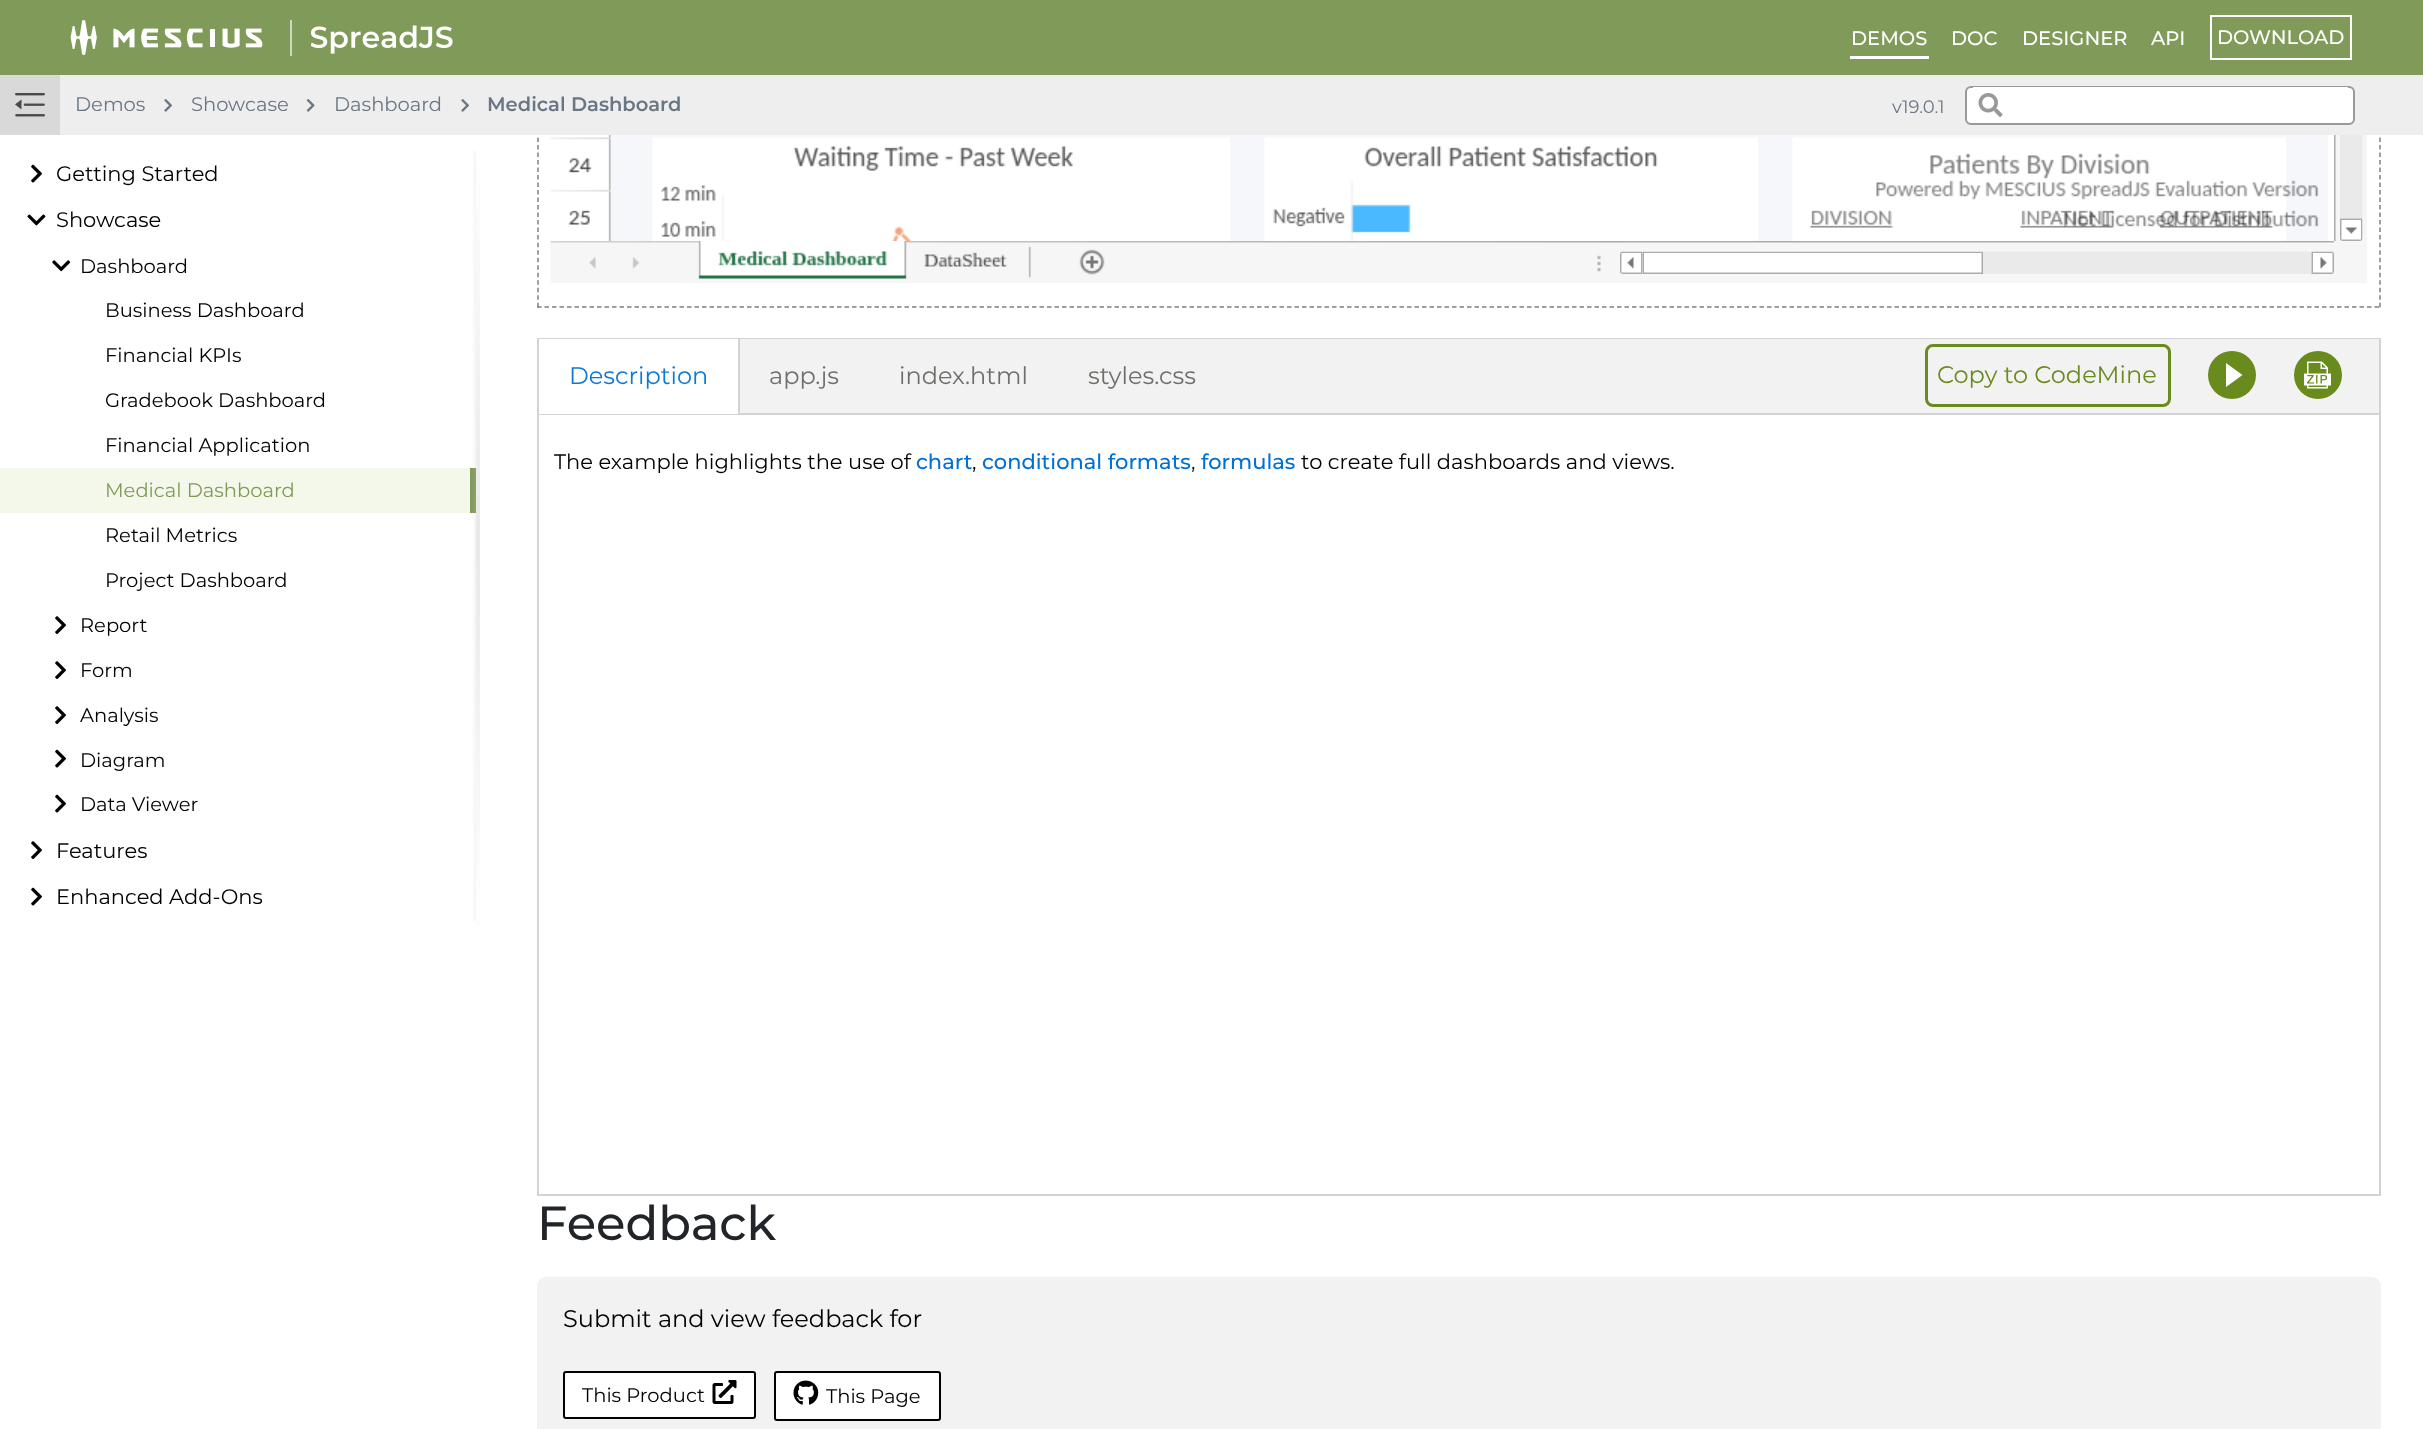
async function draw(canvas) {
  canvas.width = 2423
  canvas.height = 1429
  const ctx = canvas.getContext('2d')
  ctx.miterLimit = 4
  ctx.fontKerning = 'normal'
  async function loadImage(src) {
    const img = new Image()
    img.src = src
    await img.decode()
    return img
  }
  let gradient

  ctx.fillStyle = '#fff'
  ctx.fillRect(0, 0, 2423, 1429)
  ctx.beginPath()
  ctx.moveTo(2380, -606)
  ctx.lineTo(2380, 307.5)
  ctx.strokeStyle = '#808080'
  ctx.lineWidth = 1.5
  ctx.setLineDash([4.5, 3.01])
  ctx.stroke()
  ctx.beginPath()
  ctx.moveTo(537, 307)
  ctx.lineTo(2380.5, 307)
  ctx.setLineDash([4.5, 3])
  ctx.stroke()
  ctx.beginPath()
  ctx.moveTo(538, -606)
  ctx.lineTo(538, 307.5)
  ctx.setLineDash([4.5, 3.01])
  ctx.stroke()
  ctx.fillStyle = '#809b59'
  ctx.fillRect(0, 0, 2423, 75)
  ctx.drawImage(await loadImage('image0.png'), 70, 20, 193, 35)
  ctx.fillStyle = '#ccd7bd'
  ctx.fillRect(290, 20, 2, 36)
  ctx.drawImage(await loadImage('image1.png'), 311, 25, 142, 29)
  ctx.font = '500 19.5px Montserrat'
  ctx.fillStyle = '#fff'
  ctx.fillText('DEMOS', 1851, 45)
  ctx.fillRect(1850, 56, 79, 3)
  ctx.fillText('DOC', 1951, 45)
  ctx.fillText('DESIGNER', 2022, 45)
  ctx.fillText('API', 2151, 45)
  ctx.strokeStyle = '#fff'
  ctx.lineWidth = 2
  ctx.setLineDash([])
  ctx.strokeRect(2211, 16, 140, 43)
  ctx.fillText('DOWNLOAD', 2217, 44)
  ctx.fillStyle = '#eee'
  ctx.fillRect(60, 75, 2363, 60)
  ctx.fillStyle = '#d9d9d9'
  ctx.fillRect(0, 75, 60, 60)
  ctx.drawImage(await loadImage('image2.png'), 15, 93, 30, 24)
  ctx.font = '19.5px Montserrat'
  ctx.fillStyle = '#697683'
  ctx.fillText('Demos', 75, 111)
  ctx.drawImage(await loadImage('image3.png'), 164, 99, 8, 13)
  ctx.fillText('Showcase', 191, 111)
  ctx.drawImage(await loadImage('image4.png'), 306, 99, 9, 13)
  ctx.fillText('Dashboard', 334, 111)
  ctx.drawImage(await loadImage('image3.png'), 461, 99, 8, 13)
  ctx.font = '600 19.5px Montserrat'
  ctx.fillText('Medical Dashboard', 487, 111)
  ctx.fillStyle = '#fff'
  ctx.beginPath()
  ctx.roundRect(1966, 87, 388, 37, 5)
  ctx.fill()
  ctx.strokeStyle = '#999'
  ctx.stroke()
  ctx.fillRect(1973, 87, 375, 1)
  ctx.font = '18px Montserrat'
  ctx.fillStyle = '#697683'
  ctx.fillText('v19.0.1', 1892, 113)
  ctx.drawImage(await loadImage('image5.png'), 1978, 93, 25, 24)
  ctx.drawImage(await loadImage('image6.png'), 31, 164, 11, 19)
  ctx.font = '21px Montserrat'
  ctx.fillStyle = '#000'
  ctx.fillText('Getting Started', 56, 181)
  ctx.drawImage(await loadImage('image7.png'), 27, 214, 19, 12)
  ctx.fillText('Showcase', 56, 227)
  ctx.drawImage(await loadImage('image8.png'), 52, 260, 19, 12)
  ctx.font = '19.5px Montserrat'
  ctx.fillText('Dashboard', 80, 273)
  ctx.fillText('Business Dashboard', 105, 317)
  ctx.fillText('Financial KPIs', 105, 362)
  ctx.fillText('Gradebook Dashboard', 105, 407)
  ctx.fillText('Financial Application', 105, 452)
  ctx.fillStyle = '#f4f8eb'
  ctx.fillRect(0, 468, 470, 45)
  ctx.fillStyle = '#809b59'
  ctx.fillRect(470, 468, 6, 45)
  ctx.fillText('Medical Dashboard', 105, 497)
  ctx.fillStyle = '#000'
  ctx.fillText('Retail Metrics', 105, 542)
  ctx.fillText('Project Dashboard', 105, 587)
  ctx.drawImage(await loadImage('image9.png'), 55, 616, 11, 18)
  ctx.fillText('Report', 80, 632)
  ctx.drawImage(await loadImage('image9.png'), 55, 661, 11, 18)
  ctx.fillText('Form', 80, 677)
  ctx.drawImage(await loadImage('image9.png'), 55, 706, 11, 18)
  ctx.fillText('Analysis', 80, 722)
  ctx.drawImage(await loadImage('image6.png'), 55, 749, 11, 19)
  ctx.fillText('Diagram', 80, 767)
  ctx.drawImage(await loadImage('image6.png'), 55, 794, 11, 19)
  ctx.fillText('Data Viewer', 80, 811)
  ctx.drawImage(await loadImage('image9.png'), 31, 841, 11, 18)
  ctx.font = '21px Montserrat'
  ctx.fillText('Features', 56, 858)
  ctx.drawImage(await loadImage('image6.png'), 31, 887, 11, 19)
  ctx.fillText('Enhanced Add-Ons', 56, 904)
  ctx.save()
  ctx.beginPath()
  ctx.rect(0, 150, 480, 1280)
  ctx.clip()
  ctx.fillStyle = '#c4c4c480'
  ctx.filter = 'blur(3px)'
  ctx.beginPath()
  ctx.rect(477, 150, 5, 771)
  ctx.fill()
  ctx.filter = 'none'
  ctx.restore()
  gradient = ctx.createLinearGradient(478, 150, 478, 921)
  gradient.addColorStop(0, '#fff')
  gradient.addColorStop(0.51, '#e8e8e8')
  gradient.addColorStop(1, '#fff')
  ctx.fillStyle = gradient
  ctx.fillRect(476, 150, 4, 771)
  ctx.drawImage(await loadImage('image10.png'), 550, 135, 1817, 148)
  ctx.strokeStyle = '#d3d3d3'
  ctx.strokeRect(538, 339, 1842, 856)
  ctx.fillStyle = '#f3f2f2'
  ctx.fillRect(740, 339, 1639, 74)
  ctx.fillStyle = '#d3d3d3'
  ctx.fillRect(539, 413, 1840, 2)
  ctx.fillStyle = '#fff'
  ctx.fillRect(539, 339, 199, 75)
  ctx.fillStyle = '#d3d3d3'
  ctx.fillRect(738, 339, 2, 75)
  ctx.font = '24px Montserrat'
  ctx.fillStyle = '#0d78d5'
  ctx.fillText('Description', 569, 384)
  ctx.fillStyle = '#706e6b'
  ctx.fillText('app.js', 769, 384)
  ctx.fillText('index.html', 899, 384)
  ctx.fillText('styles.css', 1088, 384)
  ctx.beginPath()
  ctx.roundRect(1926.5, 345.5, 243, 60, 6.5)
  ctx.strokeStyle = '#698a1d'
  ctx.lineWidth = 3
  ctx.stroke()
  ctx.fillStyle = '#698a1d'
  ctx.fillText('Copy to CodeMine', 1937, 383)
  ctx.beginPath()
  ctx.arc(2232, 375, 24, 0, 2 * Math.PI)
  ctx.fill()
  ctx.fillStyle = '#fff'
  ctx.beginPath()
  ctx.moveTo(2226, 363)
  ctx.lineTo(2226, 387)
  ctx.lineTo(2242.5, 375)
  ctx.closePath()
  ctx.fill()
  ctx.fillStyle = '#698a1d'
  ctx.beginPath()
  ctx.arc(2318, 375, 24, 0, 2 * Math.PI)
  ctx.fill()
  ctx.drawImage(await loadImage('image11.png'), 2304, 361, 27, 28)
  ctx.font = '21px Montserrat'
  ctx.fillStyle = '#000'
  ctx.fillText('The example highlights the use of', 554, 469)
  ctx.font = '500 21px Montserrat'
  ctx.fillStyle = '#0070d2'
  ctx.fillText('chart', 916, 469)
  ctx.font = '21px Montserrat'
  ctx.fillStyle = '#000'
  ctx.fillText(',', 972, 469)
  ctx.font = '500 21px Montserrat'
  ctx.fillStyle = '#0070d2'
  ctx.fillText('conditional formats', 982, 469)
  ctx.font = '21px Montserrat'
  ctx.fillStyle = '#000'
  ctx.fillText(',', 1191, 469)
  ctx.font = '500 21px Montserrat'
  ctx.fillStyle = '#0070d2'
  ctx.fillText('formulas', 1201, 469)
  ctx.font = '21px Montserrat'
  ctx.fillStyle = '#000'
  ctx.fillText('to create full dashboards and views.', 1301, 469)
  ctx.font = '500 48px Montserrat'
  ctx.fillStyle = '#212529'
  ctx.fillText('Feedback', 537, 1240)
  ctx.fillStyle = '#f2f2f2'
  ctx.beginPath()
  ctx.roundRect(537, 1277, 1844, 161, 9)
  ctx.fill()
  ctx.font = '24px Montserrat'
  ctx.fillStyle = '#000'
  ctx.fillText('Submit and view feedback for', 563, 1327)
  ctx.fillStyle = '#fff'
  ctx.beginPath()
  ctx.roundRect(564, 1372, 191, 46, 2)
  ctx.fill()
  ctx.strokeStyle = '#000'
  ctx.lineWidth = 2
  ctx.stroke()
  ctx.font = '19.5px Montserrat'
  ctx.fillStyle = '#000'
  ctx.fillText('This Product', 582, 1402)
  ctx.drawImage(await loadImage('image12.png'), 712, 1380, 25, 24)
  ctx.fillStyle = '#fff'
  ctx.beginPath()
  ctx.roundRect(775, 1372, 165, 48, 2)
  ctx.fill()
  ctx.stroke()
  ctx.drawImage(await loadImage('image13.png'), 793, 1380, 26, 25)
  ctx.fillStyle = '#000'
  ctx.fillText('This Page', 826, 1403)
}

draw(document.querySelector('canvas'))
